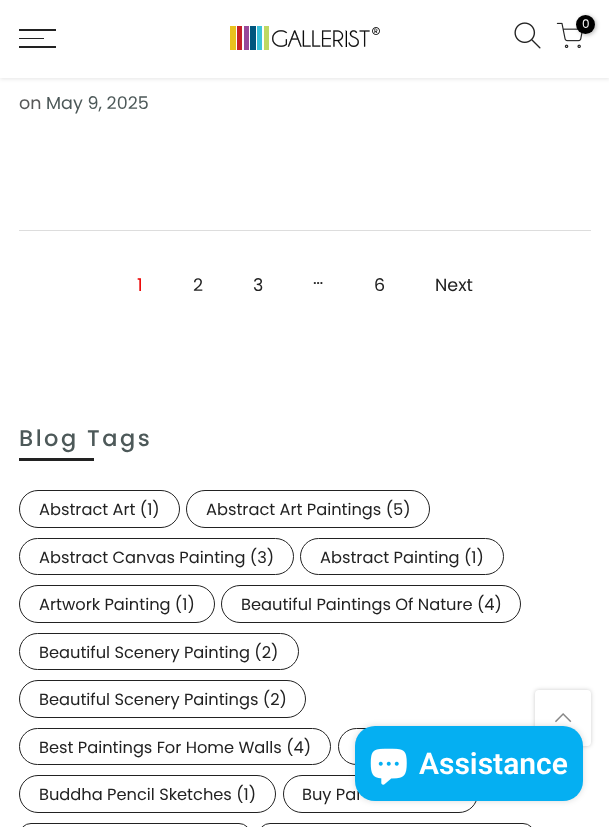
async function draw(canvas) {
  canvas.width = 609
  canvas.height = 827
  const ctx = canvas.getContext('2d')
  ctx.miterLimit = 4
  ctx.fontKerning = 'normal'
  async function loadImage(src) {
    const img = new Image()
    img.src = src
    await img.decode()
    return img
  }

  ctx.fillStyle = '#fff'
  ctx.fillRect(0, 0, 609, 827)
  ctx.fillStyle = '#0000001a'
  ctx.filter = 'blur(2px)'
  ctx.beginPath()
  ctx.rect(0, 1, 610, 78)
  ctx.fill()
  ctx.filter = 'none'
  ctx.fillStyle = '#fff'
  ctx.fillRect(0, 0, 609, 78)
  ctx.drawImage(await loadImage('image0.png'), 514, 22, 27, 27)
  ctx.drawImage(await loadImage('image1.png'), 556, 22, 27, 26)
  ctx.fillStyle = '#0000004d'
  ctx.filter = 'blur(2px)'
  ctx.beginPath()
  ctx.roundRect(578, 16, 18, 19, 9)
  ctx.fill()
  ctx.filter = 'none'
  ctx.fillStyle = '#000'
  ctx.beginPath()
  ctx.arc(585.5, 24.5, 9.5, 0, 2 * Math.PI)
  ctx.fill()
  ctx.font = '12px Poppins'
  ctx.fillStyle = '#fff'
  ctx.fillText('0', 582, 28)
  ctx.fillStyle = '#222'
  ctx.fillRect(19, 29, 37, 2)
  ctx.fillRect(19, 38, 25, 1)
  ctx.fillRect(19, 46, 37, 2)
  ctx.drawImage(await loadImage('image2.png'), 230, 26, 150, 24)
  ctx.font = '17.5px Poppins'
  ctx.fillStyle = '#595959'
  ctx.fillText('on', 19, 109)
  ctx.fillStyle = '#4d5959'
  ctx.fillText('May 9, 2025', 46, 109)
  ctx.fillStyle = '#ddd'
  ctx.fillRect(19, 230, 572, 1)
  ctx.fillStyle = '#ec0101'
  ctx.fillText('1', 137, 291)
  ctx.fillStyle = '#222'
  ctx.fillText('2', 193, 291)
  ctx.fillText('3', 253, 291)
  ctx.fillText('…', 313, 284)
  ctx.fillText('6', 374, 291)
  ctx.fillText('Next', 435, 291)
  ctx.letterSpacing = '2.5px'
  ctx.font = '500 22.5px Poppins'
  ctx.fillStyle = '#4d5959'
  ctx.fillText('Blog Tags', 19, 446)
  ctx.fillStyle = '#222'
  ctx.fillRect(19, 458, 75, 3)
  ctx.beginPath()
  ctx.roundRect(19.5, 490.5, 160, 37, 18.5)
  ctx.strokeStyle = '#222'
  ctx.stroke()
  ctx.letterSpacing = '0px'
  ctx.font = '16.25px Poppins'
  ctx.fillText('Abstract Art (1)', 39, 515)
  ctx.beginPath()
  ctx.roundRect(186.5, 490.5, 243, 37, 18.5)
  ctx.stroke()
  ctx.fillText('Abstract Art Paintings (5)', 206, 515)
  ctx.beginPath()
  ctx.roundRect(19.5, 538.5, 274, 36, 18)
  ctx.stroke()
  ctx.fillText('Abstract Canvas Painting (3)', 39, 563)
  ctx.beginPath()
  ctx.roundRect(300.5, 538.5, 203, 36, 18)
  ctx.stroke()
  ctx.fillText('Abstract Painting (1)', 320, 563)
  ctx.beginPath()
  ctx.roundRect(19.5, 585.5, 195, 37, 18.5)
  ctx.stroke()
  ctx.fillText('Artwork Painting (1)', 39, 610)
  ctx.beginPath()
  ctx.roundRect(221.5, 585.5, 299, 37, 18.5)
  ctx.stroke()
  ctx.fillText('Beautiful Paintings Of Nature (4)', 241, 610)
  ctx.beginPath()
  ctx.roundRect(19.5, 633.5, 279, 36, 18)
  ctx.stroke()
  ctx.fillText('Beautiful Scenery Painting (2)', 39, 658)
  ctx.beginPath()
  ctx.roundRect(19.5, 680.5, 286, 37, 18.5)
  ctx.stroke()
  ctx.fillText('Beautiful Scenery Paintings (2)', 39, 705)
  ctx.beginPath()
  ctx.roundRect(19.5, 728.5, 311, 36, 18)
  ctx.stroke()
  ctx.fillText('Best Paintings For Home Walls (4)', 39, 753)
  ctx.beginPath()
  ctx.roundRect(338.5, 728.5, 241, 36, 18)
  ctx.stroke()
  ctx.beginPath()
  ctx.roundRect(19.5, 775.5, 256, 37, 18.5)
  ctx.stroke()
  ctx.fillText('Buddha Pencil Sketches (1)', 39, 800)
  ctx.beginPath()
  ctx.roundRect(283.5, 775.5, 194, 37, 18.5)
  ctx.stroke()
  ctx.fillText('Buy Pai', 302, 800)
  ctx.beginPath()
  ctx.roundRect(19.5, 823.5, 231, 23, 18)
  ctx.stroke()
  ctx.beginPath()
  ctx.roundRect(258.5, 823.5, 276, 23, 18)
  ctx.stroke()
  ctx.fillStyle = '#00000033'
  ctx.filter = 'blur(2px)'
  ctx.beginPath()
  ctx.roundRect(535, 690, 56, 56, 4)
  ctx.fill()
  ctx.filter = 'none'
  ctx.fillStyle = '#fff'
  ctx.beginPath()
  ctx.roundRect(535, 690, 56, 56, 4)
  ctx.fill()
  ctx.drawImage(await loadImage('image3.png'), 555, 713, 17, 10)
  ctx.fillStyle = '#00000026'
  ctx.filter = 'blur(3px)'
  ctx.beginPath()
  ctx.roundRect(355, 726, 228, 75, 20)
  ctx.fill()
  ctx.filter = 'none'
  ctx.fillStyle = '#05aff2'
  ctx.beginPath()
  ctx.roundRect(355, 726, 228, 75, 20)
  ctx.fill()
  ctx.drawImage(await loadImage('image4.png'), 370, 748, 37, 37)
  ctx.font = '600 30px Roboto'
  ctx.fillStyle = '#fff'
  ctx.fillText('Assistance', 419, 774)
}

draw(document.querySelector('canvas'))
